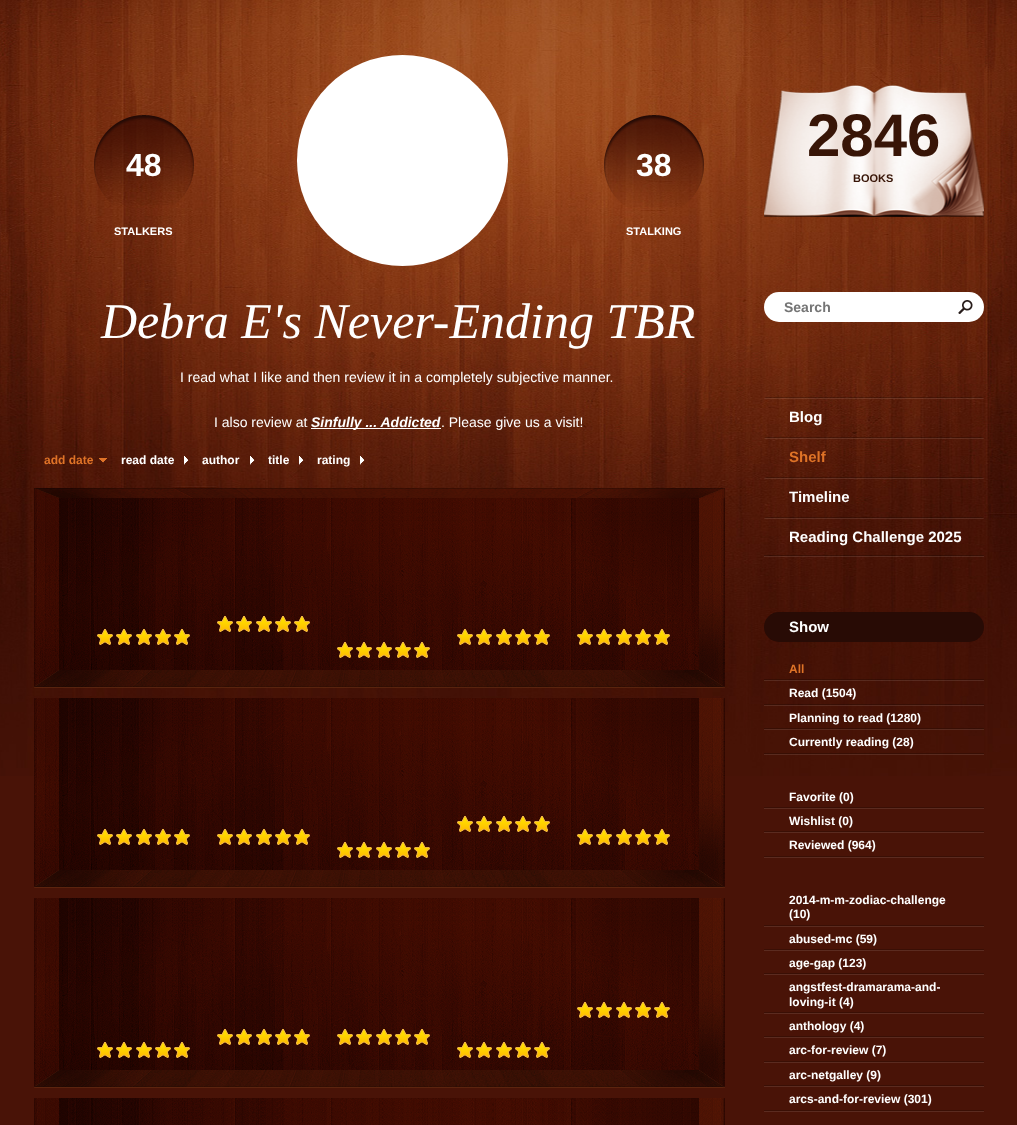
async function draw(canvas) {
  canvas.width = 1017
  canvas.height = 1125
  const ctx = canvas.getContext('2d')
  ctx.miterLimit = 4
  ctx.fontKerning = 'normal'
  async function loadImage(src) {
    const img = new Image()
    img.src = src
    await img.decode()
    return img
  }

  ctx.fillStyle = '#491307'
  ctx.fillRect(0, 0, 1017, 1125)
  ctx.drawImage(await loadImage('image0.png'), 0, 0, 1017, 776)
  ctx.drawImage(await loadImage('image1.png'), 94, 115, 100, 90)
  ctx.font = 'bold 32px Liberation Sans'
  ctx.fillStyle = '#fff'
  ctx.fillText('48', 126, 176)
  ctx.font = 'bold 11px Liberation Sans'
  ctx.fillText('STALKERS', 114, 235)
  ctx.beginPath()
  ctx.arc(402.5, 160.5, 105.5, 0, 2 * Math.PI)
  ctx.fill()
  ctx.drawImage(await loadImage('image2.png'), 604, 115, 100, 92)
  ctx.font = 'bold 32px Liberation Sans'
  ctx.fillText('38', 636, 176)
  ctx.font = 'bold 11px Liberation Sans'
  ctx.fillText('STALKING', 626, 235)
  ctx.font = 'italic 50px Liberation Serif'
  ctx.fillText('Debra E\'s Never-Ending TBR', 101, 338)
  ctx.font = '14px Liberation Sans'
  ctx.fillText('I read what I like and then review it in a completely subjective manner.', 180, 382)
  ctx.fillText('I also review at', 214, 427)
  ctx.fillRect(311, 428, 130, 1)
  ctx.font = 'italic bold 14px Liberation Sans'
  ctx.fillText('Sinfully ... Addicted', 311, 427)
  ctx.font = '14px Liberation Sans'
  ctx.fillText('. Please give us a visit!', 441, 427)
  ctx.drawImage(await loadImage('image3.png'), 99, 458, 8, 5)
  ctx.font = 'bold 12px Liberation Sans'
  ctx.fillStyle = '#df7327'
  ctx.fillText('add date', 44, 464)
  ctx.drawImage(await loadImage('image4.png'), 184, 456, 5, 9)
  ctx.fillStyle = '#fff'
  ctx.fillText('read date', 121, 464)
  ctx.drawImage(await loadImage('image5.png'), 250, 456, 5, 9)
  ctx.fillText('author', 202, 464)
  ctx.drawImage(await loadImage('image6.png'), 299, 456, 5, 9)
  ctx.fillText('title', 268, 464)
  ctx.drawImage(await loadImage('image7.png'), 360, 456, 5, 9)
  ctx.fillText('rating', 317, 464)
  ctx.drawImage(await loadImage('image8.png'), 34, 488, 691, 10)
  ctx.drawImage(await loadImage('image9.png'), 34, 498, 691, 627)
  ctx.drawImage(await loadImage('image10.png'), 217, 616, 16, 16)
  ctx.drawImage(await loadImage('image11.png'), 236, 616, 16, 16)
  ctx.drawImage(await loadImage('image12.png'), 256, 616, 16, 16)
  ctx.drawImage(await loadImage('image13.png'), 275, 616, 16, 16)
  ctx.drawImage(await loadImage('image14.png'), 294, 616, 16, 16)
  ctx.drawImage(await loadImage('image15.png'), 97, 629, 16, 16)
  ctx.drawImage(await loadImage('image16.png'), 116, 629, 16, 16)
  ctx.drawImage(await loadImage('image17.png'), 136, 629, 16, 16)
  ctx.drawImage(await loadImage('image18.png'), 155, 629, 16, 16)
  ctx.drawImage(await loadImage('image19.png'), 174, 629, 16, 16)
  ctx.drawImage(await loadImage('image20.png'), 457, 629, 16, 16)
  ctx.drawImage(await loadImage('image21.png'), 476, 629, 16, 16)
  ctx.drawImage(await loadImage('image22.png'), 496, 629, 16, 16)
  ctx.drawImage(await loadImage('image23.png'), 515, 629, 16, 16)
  ctx.drawImage(await loadImage('image24.png'), 534, 629, 16, 16)
  ctx.drawImage(await loadImage('image25.png'), 577, 629, 16, 16)
  ctx.drawImage(await loadImage('image26.png'), 596, 629, 16, 16)
  ctx.drawImage(await loadImage('image27.png'), 616, 629, 16, 16)
  ctx.drawImage(await loadImage('image28.png'), 635, 629, 16, 16)
  ctx.drawImage(await loadImage('image29.png'), 654, 629, 16, 16)
  ctx.drawImage(await loadImage('image30.png'), 337, 642, 16, 16)
  ctx.drawImage(await loadImage('image31.png'), 356, 642, 16, 16)
  ctx.drawImage(await loadImage('image32.png'), 376, 642, 16, 16)
  ctx.drawImage(await loadImage('image33.png'), 395, 642, 16, 16)
  ctx.drawImage(await loadImage('image34.png'), 414, 642, 16, 16)
  ctx.drawImage(await loadImage('image35.png'), 457, 816, 16, 16)
  ctx.drawImage(await loadImage('image36.png'), 476, 816, 16, 16)
  ctx.drawImage(await loadImage('image37.png'), 496, 816, 16, 16)
  ctx.drawImage(await loadImage('image38.png'), 515, 816, 16, 16)
  ctx.drawImage(await loadImage('image39.png'), 534, 816, 16, 16)
  ctx.drawImage(await loadImage('image15.png'), 97, 829, 16, 16)
  ctx.drawImage(await loadImage('image16.png'), 116, 829, 16, 16)
  ctx.drawImage(await loadImage('image17.png'), 136, 829, 16, 16)
  ctx.drawImage(await loadImage('image18.png'), 155, 829, 16, 16)
  ctx.drawImage(await loadImage('image19.png'), 174, 829, 16, 16)
  ctx.drawImage(await loadImage('image40.png'), 217, 829, 16, 16)
  ctx.drawImage(await loadImage('image41.png'), 236, 829, 16, 16)
  ctx.drawImage(await loadImage('image42.png'), 256, 829, 16, 16)
  ctx.drawImage(await loadImage('image43.png'), 275, 829, 16, 16)
  ctx.drawImage(await loadImage('image44.png'), 294, 829, 16, 16)
  ctx.drawImage(await loadImage('image25.png'), 577, 829, 16, 16)
  ctx.drawImage(await loadImage('image26.png'), 596, 829, 16, 16)
  ctx.drawImage(await loadImage('image27.png'), 616, 829, 16, 16)
  ctx.drawImage(await loadImage('image28.png'), 635, 829, 16, 16)
  ctx.drawImage(await loadImage('image29.png'), 654, 829, 16, 16)
  ctx.drawImage(await loadImage('image30.png'), 337, 842, 16, 16)
  ctx.drawImage(await loadImage('image31.png'), 356, 842, 16, 16)
  ctx.drawImage(await loadImage('image32.png'), 376, 842, 16, 16)
  ctx.drawImage(await loadImage('image33.png'), 395, 842, 16, 16)
  ctx.drawImage(await loadImage('image34.png'), 414, 842, 16, 16)
  ctx.drawImage(await loadImage('image45.png'), 577, 1002, 16, 16)
  ctx.drawImage(await loadImage('image46.png'), 596, 1002, 16, 16)
  ctx.drawImage(await loadImage('image47.png'), 616, 1002, 16, 16)
  ctx.drawImage(await loadImage('image48.png'), 635, 1002, 16, 16)
  ctx.drawImage(await loadImage('image49.png'), 654, 1002, 16, 16)
  ctx.drawImage(await loadImage('image40.png'), 217, 1029, 16, 16)
  ctx.drawImage(await loadImage('image41.png'), 236, 1029, 16, 16)
  ctx.drawImage(await loadImage('image42.png'), 256, 1029, 16, 16)
  ctx.drawImage(await loadImage('image43.png'), 275, 1029, 16, 16)
  ctx.drawImage(await loadImage('image44.png'), 294, 1029, 16, 16)
  ctx.drawImage(await loadImage('image50.png'), 337, 1029, 16, 16)
  ctx.drawImage(await loadImage('image51.png'), 356, 1029, 16, 16)
  ctx.drawImage(await loadImage('image52.png'), 376, 1029, 16, 16)
  ctx.drawImage(await loadImage('image53.png'), 395, 1029, 16, 16)
  ctx.drawImage(await loadImage('image54.png'), 414, 1029, 16, 16)
  ctx.drawImage(await loadImage('image55.png'), 97, 1042, 16, 16)
  ctx.drawImage(await loadImage('image56.png'), 116, 1042, 16, 16)
  ctx.drawImage(await loadImage('image57.png'), 136, 1042, 16, 16)
  ctx.drawImage(await loadImage('image58.png'), 155, 1042, 16, 16)
  ctx.drawImage(await loadImage('image59.png'), 174, 1042, 16, 16)
  ctx.drawImage(await loadImage('image60.png'), 457, 1042, 16, 16)
  ctx.drawImage(await loadImage('image61.png'), 476, 1042, 16, 16)
  ctx.drawImage(await loadImage('image62.png'), 496, 1042, 16, 16)
  ctx.drawImage(await loadImage('image63.png'), 515, 1042, 16, 16)
  ctx.drawImage(await loadImage('image64.png'), 534, 1042, 16, 16)
  ctx.drawImage(await loadImage('image65.png'), 764, 85, 220, 132)
  ctx.font = 'bold 60px Liberation Sans'
  ctx.fillStyle = '#381507'
  ctx.fillText('2846', 807, 156)
  ctx.font = 'bold 11px Liberation Sans'
  ctx.fillText('BOOKS', 853, 182)
  ctx.fillStyle = '#fff'
  ctx.beginPath()
  ctx.roundRect(764, 292, 220, 30, 15)
  ctx.fill()
  ctx.drawImage(await loadImage('image66.png'), 958, 300, 15, 14)
  ctx.font = 'bold 14px Liberation Sans'
  ctx.fillStyle = '#757575'
  ctx.fillText('Search', 784, 312)
  ctx.drawImage(await loadImage('image67.png'), 764, 555, 220, 2)
  ctx.drawImage(await loadImage('image68.png'), 764, 397, 220, 2)
  ctx.font = 'bold 15px Liberation Sans'
  ctx.fillStyle = '#fff'
  ctx.fillText('Blog', 789, 422)
  ctx.drawImage(await loadImage('image69.png'), 764, 437, 220, 2)
  ctx.fillStyle = '#df7327'
  ctx.fillText('Shelf', 789, 462)
  ctx.drawImage(await loadImage('image70.png'), 764, 477, 220, 2)
  ctx.fillStyle = '#fff'
  ctx.fillText('Timeline', 789, 502)
  ctx.drawImage(await loadImage('image71.png'), 764, 517, 220, 2)
  ctx.fillText('Reading Challenge 2025', 789, 542)
  ctx.fillStyle = '#280b05'
  ctx.beginPath()
  ctx.roundRect(764, 612, 220, 30, 15)
  ctx.fill()
  ctx.fillStyle = '#fff'
  ctx.fillText('Show', 789, 632)
  ctx.drawImage(await loadImage('image72.png'), 764, 679, 220, 2)
  ctx.font = 'bold 12px Liberation Sans'
  ctx.fillStyle = '#df7327'
  ctx.fillText('All', 789, 673)
  ctx.drawImage(await loadImage('image73.png'), 764, 704, 220, 2)
  ctx.fillStyle = '#fff'
  ctx.fillText('Read (1504)', 789, 697)
  ctx.drawImage(await loadImage('image74.png'), 764, 728, 220, 2)
  ctx.fillText('Planning to read (1280)', 789, 722)
  ctx.drawImage(await loadImage('image75.png'), 764, 753, 220, 2)
  ctx.fillText('Currently reading (28)', 789, 746)
  ctx.drawImage(await loadImage('image76.png'), 764, 807, 220, 2)
  ctx.fillText('Favorite (0)', 789, 801)
  ctx.drawImage(await loadImage('image76.png'), 764, 831, 220, 2)
  ctx.fillText('Wishlist (0)', 789, 825)
  ctx.drawImage(await loadImage('image76.png'), 764, 856, 220, 2)
  ctx.fillText('Reviewed (964)', 789, 849)
  ctx.drawImage(await loadImage('image76.png'), 764, 925, 220, 2)
  ctx.fillText('2014-m-m-zodiac-challenge', 789, 904)
  ctx.fillText('(10)', 789, 918)
  ctx.drawImage(await loadImage('image76.png'), 764, 949, 220, 2)
  ctx.fillText('abused-mc (59)', 789, 943)
  ctx.drawImage(await loadImage('image76.png'), 764, 973, 220, 2)
  ctx.fillText('age-gap (123)', 789, 967)
  ctx.drawImage(await loadImage('image76.png'), 764, 1012, 220, 2)
  ctx.fillText('angstfest-dramarama-and-', 789, 991)
  ctx.fillText('loving-it (4)', 789, 1006)
  ctx.drawImage(await loadImage('image76.png'), 764, 1036, 220, 2)
  ctx.fillText('anthology (4)', 789, 1030)
  ctx.drawImage(await loadImage('image76.png'), 764, 1061, 220, 2)
  ctx.fillText('arc-for-review (7)', 789, 1054)
  ctx.drawImage(await loadImage('image76.png'), 764, 1085, 220, 2)
  ctx.fillText('arc-netgalley (9)', 789, 1079)
  ctx.drawImage(await loadImage('image76.png'), 764, 1110, 220, 2)
  ctx.fillText('arcs-and-for-review (301)', 789, 1103)
}

draw(document.querySelector('canvas'))
